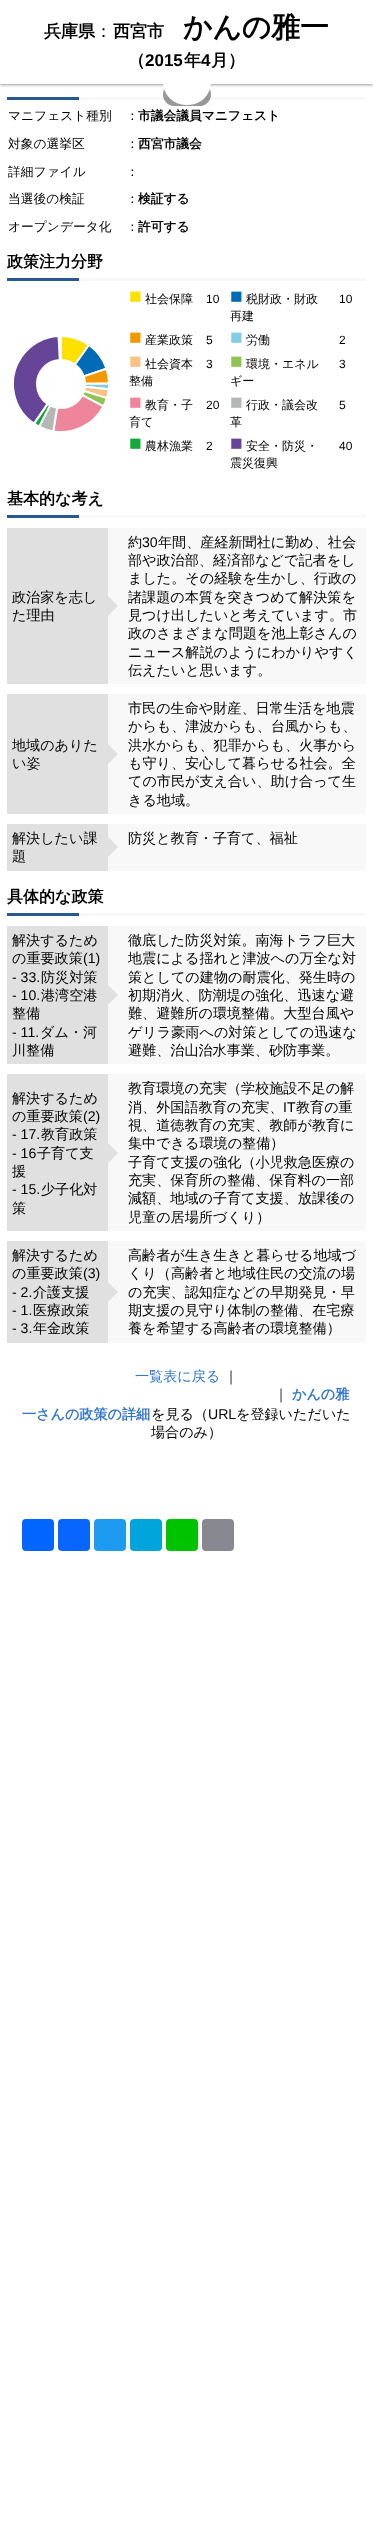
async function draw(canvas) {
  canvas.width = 373
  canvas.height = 2542
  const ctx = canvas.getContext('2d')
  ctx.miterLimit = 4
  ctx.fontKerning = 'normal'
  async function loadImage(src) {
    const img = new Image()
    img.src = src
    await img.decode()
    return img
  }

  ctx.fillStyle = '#fff'
  ctx.fillRect(0, 0, 373, 2542)
  ctx.fillStyle = '#00000066'
  ctx.filter = 'blur(1.5px)'
  ctx.beginPath()
  ctx.rect(0, 1, 373, 84)
  ctx.fill()
  ctx.filter = 'none'
  ctx.fillStyle = '#fff'
  ctx.fillRect(0, 0, 373, 84)
  ctx.font = 'bold 17px WenQuanYi Zen Hei'
  ctx.fillStyle = '#000'
  ctx.fillText('兵庫県', 44, 37)
  ctx.font = '500 17px WenQuanYi Zen Hei'
  ctx.fillText('：', 95, 37)
  ctx.font = 'bold 17px WenQuanYi Zen Hei'
  ctx.fillText('西宮市', 113, 37)
  ctx.font = 'bold 28.75px WenQuanYi Zen Hei'
  ctx.fillText('かんの雅一', 183, 37)
  ctx.font = 'bold 17px WenQuanYi Zen Hei'
  ctx.fillText('（', 128, 66)
  ctx.font = 'bold 17px Liberation Sans'
  ctx.fillText('2015', 145, 66)
  ctx.font = 'bold 17px WenQuanYi Zen Hei'
  ctx.fillText('年', 184, 66)
  ctx.font = 'bold 17px Liberation Sans'
  ctx.fillText('4', 201, 66)
  ctx.font = 'bold 17px WenQuanYi Zen Hei'
  ctx.fillText('月）', 211, 66)
  ctx.fillStyle = '#f8f8f8'
  ctx.fillRect(79, 97, 287, 3)
  ctx.fillStyle = '#00000066'
  ctx.filter = 'blur(0.5px)'
  ctx.beginPath()
  ctx.roundRect(163, 83, 48, 23, 23)
  ctx.fill()
  ctx.filter = 'none'
  ctx.fillStyle = '#fff'
  ctx.beginPath()
  ctx.roundRect(163, 82, 48, 23, [0, 0, 23, 23])
  ctx.fill()
  ctx.fillStyle = '#295890'
  ctx.fillRect(7, 97, 72, 3)
  ctx.font = '500 12.75px WenQuanYi Zen Hei'
  ctx.fillStyle = '#000'
  ctx.fillText('マニフェスト種別', 8, 120)
  ctx.fillText('：', 126, 120)
  ctx.font = 'bold 12.75px WenQuanYi Zen Hei'
  ctx.fillText('市議会議員マニフェスト', 138, 120)
  ctx.font = '500 12.75px WenQuanYi Zen Hei'
  ctx.fillText('対象の選挙区', 8, 148)
  ctx.fillText('：', 126, 148)
  ctx.font = 'bold 12.75px WenQuanYi Zen Hei'
  ctx.fillText('西宮市議会', 138, 148)
  ctx.font = '500 12.75px WenQuanYi Zen Hei'
  ctx.fillText('詳細ファイル', 8, 176)
  ctx.fillText('：', 126, 176)
  ctx.fillText('当選後の検証', 8, 203)
  ctx.fillText('：', 126, 203)
  ctx.font = 'bold 12.75px WenQuanYi Zen Hei'
  ctx.fillText('検証する', 138, 203)
  ctx.font = '500 12.75px WenQuanYi Zen Hei'
  ctx.fillText('オープンデータ化', 8, 231)
  ctx.fillText('：', 126, 231)
  ctx.font = 'bold 12.75px WenQuanYi Zen Hei'
  ctx.fillText('許可する', 138, 231)
  ctx.fillStyle = '#f8f8f8'
  ctx.fillRect(79, 278, 287, 3)
  ctx.font = 'bold 16px WenQuanYi Zen Hei'
  ctx.fillStyle = '#000'
  ctx.fillText('政策注力分野', 7, 267)
  ctx.fillStyle = '#295890'
  ctx.fillRect(7, 278, 72, 3)
  ctx.drawImage(await loadImage('image0.png'), 13, 337, 95, 94)
  ctx.font = '21px Liberation Sans'
  ctx.fillStyle = '#ffe100'
  ctx.fillText('■', 129, 303)
  ctx.font = '500 12px WenQuanYi Zen Hei'
  ctx.fillStyle = '#000'
  ctx.fillText('社会保障', 145, 303)
  ctx.font = '12px Liberation Sans'
  ctx.fillText('10', 206, 303)
  ctx.font = '21px Liberation Sans'
  ctx.fillStyle = '#006cb8'
  ctx.fillText('■', 230, 303)
  ctx.font = '500 12px WenQuanYi Zen Hei'
  ctx.fillStyle = '#000'
  ctx.fillText('税財政・財政', 246, 303)
  ctx.fillText('再建', 230, 320)
  ctx.font = '12px Liberation Sans'
  ctx.fillText('10', 339, 303)
  ctx.font = '21px Liberation Sans'
  ctx.fillStyle = '#f39800'
  ctx.fillText('■', 129, 344)
  ctx.font = '500 12px WenQuanYi Zen Hei'
  ctx.fillStyle = '#000'
  ctx.fillText('産業政策', 145, 344)
  ctx.font = '12px Liberation Sans'
  ctx.fillText('5', 206, 344)
  ctx.font = '21px Liberation Sans'
  ctx.fillStyle = '#81cde3'
  ctx.fillText('■', 230, 344)
  ctx.font = '500 12px WenQuanYi Zen Hei'
  ctx.fillStyle = '#000'
  ctx.fillText('労働', 246, 344)
  ctx.font = '12px Liberation Sans'
  ctx.fillText('2', 339, 344)
  ctx.font = '21px Liberation Sans'
  ctx.fillStyle = '#f8c385'
  ctx.fillText('■', 129, 368)
  ctx.font = '500 12px WenQuanYi Zen Hei'
  ctx.fillStyle = '#000'
  ctx.fillText('社会資本', 145, 368)
  ctx.fillText('整備', 129, 385)
  ctx.font = '12px Liberation Sans'
  ctx.fillText('3', 206, 368)
  ctx.font = '21px Liberation Sans'
  ctx.fillStyle = '#8ec555'
  ctx.fillText('■', 230, 368)
  ctx.font = '500 12px WenQuanYi Zen Hei'
  ctx.fillStyle = '#000'
  ctx.fillText('環境・エネル', 246, 368)
  ctx.fillText('ギー', 230, 385)
  ctx.font = '12px Liberation Sans'
  ctx.fillText('3', 339, 368)
  ctx.font = '21px Liberation Sans'
  ctx.fillStyle = '#ee859a'
  ctx.fillText('■', 129, 409)
  ctx.font = '500 12px WenQuanYi Zen Hei'
  ctx.fillStyle = '#000'
  ctx.fillText('教育・子', 145, 409)
  ctx.fillText('育て', 129, 426)
  ctx.font = '12px Liberation Sans'
  ctx.fillText('20', 206, 409)
  ctx.font = '21px Liberation Sans'
  ctx.fillStyle = '#b5b6b6'
  ctx.fillText('■', 230, 409)
  ctx.font = '500 12px WenQuanYi Zen Hei'
  ctx.fillStyle = '#000'
  ctx.fillText('行政・議会改', 246, 409)
  ctx.fillText('革', 230, 426)
  ctx.font = '12px Liberation Sans'
  ctx.fillText('5', 339, 409)
  ctx.font = '21px Liberation Sans'
  ctx.fillStyle = '#14a83b'
  ctx.fillText('■', 129, 450)
  ctx.font = '500 12px WenQuanYi Zen Hei'
  ctx.fillStyle = '#000'
  ctx.fillText('農林漁業', 145, 450)
  ctx.font = '12px Liberation Sans'
  ctx.fillText('2', 206, 450)
  ctx.font = '21px Liberation Sans'
  ctx.fillStyle = '#664498'
  ctx.fillText('■', 230, 450)
  ctx.font = '500 12px WenQuanYi Zen Hei'
  ctx.fillStyle = '#000'
  ctx.fillText('安全・防災・', 246, 450)
  ctx.fillText('震災復興', 230, 467)
  ctx.font = '12px Liberation Sans'
  ctx.fillText('40', 339, 450)
  ctx.fillStyle = '#f8f8f8'
  ctx.fillRect(79, 515, 287, 3)
  ctx.font = 'bold 16px WenQuanYi Zen Hei'
  ctx.fillStyle = '#000'
  ctx.fillText('基本的な考え', 7, 504)
  ctx.fillStyle = '#295890'
  ctx.fillRect(7, 515, 72, 3)
  ctx.fillStyle = '#e0e0e0'
  ctx.fillRect(7, 528, 101, 156)
  ctx.font = '500 14.1px WenQuanYi Zen Hei'
  ctx.fillStyle = '#000'
  ctx.fillText('政治家を志し', 12, 602)
  ctx.fillStyle = '#f8f8f8'
  ctx.fillRect(108, 528, 258, 156)
  ctx.fillStyle = '#e0e0e0'
  ctx.beginPath()
  ctx.moveTo(108, 616)
  ctx.lineTo(108, 596)
  ctx.lineTo(118, 606)
  ctx.closePath()
  ctx.fill()
  ctx.fillStyle = '#000'
  ctx.fillText('た理由', 12, 620)
  ctx.fillText('約', 128, 547)
  ctx.font = '14.1px Liberation Sans'
  ctx.fillText('30', 142, 547)
  ctx.font = '500 14.1px WenQuanYi Zen Hei'
  ctx.fillText('年間、産経新聞社に勤め、社会', 158, 547)
  ctx.fillText('部や政治部、経済部などで記者をし', 128, 565)
  ctx.fillText('ました。その経験を生かし、行政の', 128, 583)
  ctx.fillText('諸課題の本質を突きつめて解決策を', 128, 602)
  ctx.fillText('見つけ出したいと考えています。市', 128, 620)
  ctx.fillText('政のさまざまな問題を池上彰さんの', 128, 638)
  ctx.fillText('ニュース解説のようにわかりやすく', 128, 657)
  ctx.fillText('伝えたいと思います。', 128, 675)
  ctx.fillStyle = '#e0e0e0'
  ctx.fillRect(7, 694, 101, 120)
  ctx.fillStyle = '#000'
  ctx.fillText('地域のありた', 12, 750)
  ctx.fillStyle = '#f8f8f8'
  ctx.fillRect(108, 694, 258, 120)
  ctx.fillStyle = '#e0e0e0'
  ctx.beginPath()
  ctx.moveTo(108, 764)
  ctx.lineTo(108, 744)
  ctx.lineTo(118, 754)
  ctx.closePath()
  ctx.fill()
  ctx.fillStyle = '#000'
  ctx.fillText('い姿', 12, 768)
  ctx.fillText('市民の生命や財産、日常生活を地震', 128, 713)
  ctx.fillText('からも、津波からも、台風からも、', 128, 731)
  ctx.fillText('洪水からも、犯罪からも、火事から', 128, 750)
  ctx.fillText('も守り、安心して暮らせる社会。全', 128, 768)
  ctx.fillText('ての市民が支え合い、助け合って生', 128, 786)
  ctx.fillText('きる地域。', 128, 805)
  ctx.fillStyle = '#e0e0e0'
  ctx.fillRect(7, 824, 101, 47)
  ctx.fillStyle = '#000'
  ctx.fillText('解決したい課', 12, 843)
  ctx.fillStyle = '#f8f8f8'
  ctx.fillRect(108, 824, 258, 47)
  ctx.fillStyle = '#e0e0e0'
  ctx.beginPath()
  ctx.moveTo(108, 857)
  ctx.lineTo(108, 837)
  ctx.lineTo(118, 847)
  ctx.closePath()
  ctx.fill()
  ctx.fillStyle = '#000'
  ctx.fillText('題', 12, 861)
  ctx.fillText('防災と教育・子育て、福祉', 128, 843)
  ctx.fillStyle = '#f8f8f8'
  ctx.fillRect(79, 913, 287, 3)
  ctx.font = 'bold 16px WenQuanYi Zen Hei'
  ctx.fillStyle = '#000'
  ctx.fillText('具体的な政策', 7, 902)
  ctx.fillStyle = '#295890'
  ctx.fillRect(7, 913, 72, 3)
  ctx.fillStyle = '#e0e0e0'
  ctx.fillRect(7, 926, 101, 138)
  ctx.font = '500 14.1px WenQuanYi Zen Hei'
  ctx.fillStyle = '#000'
  ctx.fillText('解決するため', 12, 945)
  ctx.fillText('の重要政策', 12, 963)
  ctx.font = '14.1px Liberation Sans'
  ctx.fillText('(1)', 83, 963)
  ctx.fillText('- 33.', 12, 982)
  ctx.font = '500 14.1px WenQuanYi Zen Hei'
  ctx.fillText('防災対策', 41, 982)
  ctx.font = '14.1px Liberation Sans'
  ctx.fillText('- 10.', 12, 1000)
  ctx.font = '500 14.1px WenQuanYi Zen Hei'
  ctx.fillText('港湾空港', 41, 1000)
  ctx.fillText('整備', 12, 1018)
  ctx.font = '14.1px Liberation Sans'
  ctx.fillText('- 11.', 12, 1037)
  ctx.font = '500 14.1px WenQuanYi Zen Hei'
  ctx.fillText('ダム・河', 40, 1037)
  ctx.fillText('川整備', 12, 1055)
  ctx.fillStyle = '#f8f8f8'
  ctx.fillRect(108, 926, 258, 138)
  ctx.fillStyle = '#e0e0e0'
  ctx.beginPath()
  ctx.moveTo(108, 1005)
  ctx.lineTo(108, 985)
  ctx.lineTo(118, 995)
  ctx.closePath()
  ctx.fill()
  ctx.fillStyle = '#000'
  ctx.fillText('徹底した防災対策。南海トラフ巨大', 128, 945)
  ctx.fillText('地震による揺れと津波への万全な対', 128, 963)
  ctx.fillText('策としての建物の耐震化、発生時の', 128, 982)
  ctx.fillText('初期消火、防潮堤の強化、迅速な避', 128, 1000)
  ctx.fillText('難、避難所の環境整備。大型台風や', 128, 1018)
  ctx.fillText('ゲリラ豪雨への対策としての迅速な', 128, 1037)
  ctx.fillText('避難、治山治水事業、砂防事業。', 128, 1055)
  ctx.fillStyle = '#e0e0e0'
  ctx.fillRect(7, 1074, 101, 157)
  ctx.fillStyle = '#000'
  ctx.fillText('解決するため', 12, 1103)
  ctx.fillText('の重要政策', 12, 1121)
  ctx.font = '14.1px Liberation Sans'
  ctx.fillText('(2)', 83, 1121)
  ctx.fillText('- 17.', 12, 1139)
  ctx.font = '500 14.1px WenQuanYi Zen Hei'
  ctx.fillText('教育政策', 41, 1139)
  ctx.font = '14.1px Liberation Sans'
  ctx.fillText('- 16', 12, 1158)
  ctx.font = '500 14.1px WenQuanYi Zen Hei'
  ctx.fillText('子育て支', 37, 1158)
  ctx.fillText('援', 12, 1176)
  ctx.font = '14.1px Liberation Sans'
  ctx.fillText('- 15.', 12, 1194)
  ctx.font = '500 14.1px WenQuanYi Zen Hei'
  ctx.fillText('少子化対', 41, 1194)
  ctx.fillText('策', 12, 1213)
  ctx.fillStyle = '#f8f8f8'
  ctx.fillRect(108, 1074, 258, 157)
  ctx.fillStyle = '#e0e0e0'
  ctx.beginPath()
  ctx.moveTo(108, 1163)
  ctx.lineTo(108, 1143)
  ctx.lineTo(118, 1153)
  ctx.closePath()
  ctx.fill()
  ctx.fillStyle = '#000'
  ctx.fillText('教育環境の充実（学校施設不足の解', 128, 1093)
  ctx.fillText('消、外国語教育の充実、', 128, 1112)
  ctx.font = '14.1px Liberation Sans'
  ctx.fillText('IT', 283, 1112)
  ctx.font = '500 14.1px WenQuanYi Zen Hei'
  ctx.fillText('教育の重', 296, 1112)
  ctx.fillText('視、道徳教育の充実、教師が教育に', 128, 1130)
  ctx.fillText('集中できる環境の整備）', 128, 1148)
  ctx.fillText('子育て支援の強化（小児救急医療の', 128, 1167)
  ctx.fillText('充実、保育所の整備、保育料の一部', 128, 1185)
  ctx.fillText('減額、地域の子育て支援、放課後の', 128, 1203)
  ctx.fillText('児童の居場所づくり）', 128, 1222)
  ctx.fillStyle = '#e0e0e0'
  ctx.fillRect(7, 1241, 101, 102)
  ctx.fillStyle = '#000'
  ctx.fillText('解決するため', 12, 1260)
  ctx.fillText('の重要政策', 12, 1278)
  ctx.font = '14.1px Liberation Sans'
  ctx.fillText('(3)', 83, 1278)
  ctx.fillText('- 2.', 12, 1297)
  ctx.font = '500 14.1px WenQuanYi Zen Hei'
  ctx.fillText('介護支援', 33, 1297)
  ctx.font = '14.1px Liberation Sans'
  ctx.fillText('- 1.', 12, 1315)
  ctx.font = '500 14.1px WenQuanYi Zen Hei'
  ctx.fillText('医療政策', 33, 1315)
  ctx.font = '14.1px Liberation Sans'
  ctx.fillText('- 3.', 12, 1333)
  ctx.font = '500 14.1px WenQuanYi Zen Hei'
  ctx.fillText('年金政策', 33, 1333)
  ctx.fillStyle = '#f8f8f8'
  ctx.fillRect(108, 1241, 258, 102)
  ctx.fillStyle = '#e0e0e0'
  ctx.beginPath()
  ctx.moveTo(108, 1302)
  ctx.lineTo(108, 1282)
  ctx.lineTo(118, 1292)
  ctx.closePath()
  ctx.fill()
  ctx.fillStyle = '#000'
  ctx.fillText('高齢者が生き生きと暮らせる地域づ', 128, 1260)
  ctx.fillText('くり（高齢者と地域住民の交流の場', 128, 1278)
  ctx.fillText('の充実、認知症などの早期発見・早', 128, 1297)
  ctx.fillText('期支援の見守り体制の整備、在宅療', 128, 1315)
  ctx.fillText('養を希望する高齢者の環境整備）', 128, 1333)
  ctx.fillStyle = '#37c'
  ctx.fillText('一覧表に戻る', 135, 1381)
  ctx.fillStyle = '#000'
  ctx.fillText('｜', 224, 1381)
  ctx.fillText('｜', 274, 1399)
  ctx.font = 'bold 14.1px WenQuanYi Zen Hei'
  ctx.fillStyle = '#37c'
  ctx.fillText('かんの雅', 292, 1399)
  ctx.fillText('一さんの政策の詳細', 22, 1419)
  ctx.font = '500 14.1px WenQuanYi Zen Hei'
  ctx.fillStyle = '#000'
  ctx.fillText('を見る（', 151, 1419)
  ctx.font = '14.1px Liberation Sans'
  ctx.fillText('URL', 208, 1419)
  ctx.font = '500 14.1px WenQuanYi Zen Hei'
  ctx.fillText('を登録いただいた', 236, 1419)
  ctx.fillText('場合のみ）', 151, 1437)
  ctx.fillStyle = '#0166ff'
  ctx.beginPath()
  ctx.roundRect(22, 1519, 32, 32, 4)
  ctx.fill()
  ctx.fillStyle = '#0866ff'
  ctx.beginPath()
  ctx.roundRect(58, 1519, 32, 32, 4)
  ctx.fill()
  ctx.fillStyle = '#1d9bf0'
  ctx.beginPath()
  ctx.roundRect(94, 1519, 32, 32, 4)
  ctx.fill()
  ctx.fillStyle = '#00a6db'
  ctx.beginPath()
  ctx.roundRect(130, 1519, 32, 32, 4)
  ctx.fill()
  ctx.fillStyle = '#00c300'
  ctx.beginPath()
  ctx.roundRect(166, 1519, 32, 32, 4)
  ctx.fill()
  ctx.fillStyle = '#888990'
  ctx.beginPath()
  ctx.roundRect(202, 1519, 32, 32, 4)
  ctx.fill()
}

draw(document.querySelector('canvas'))
